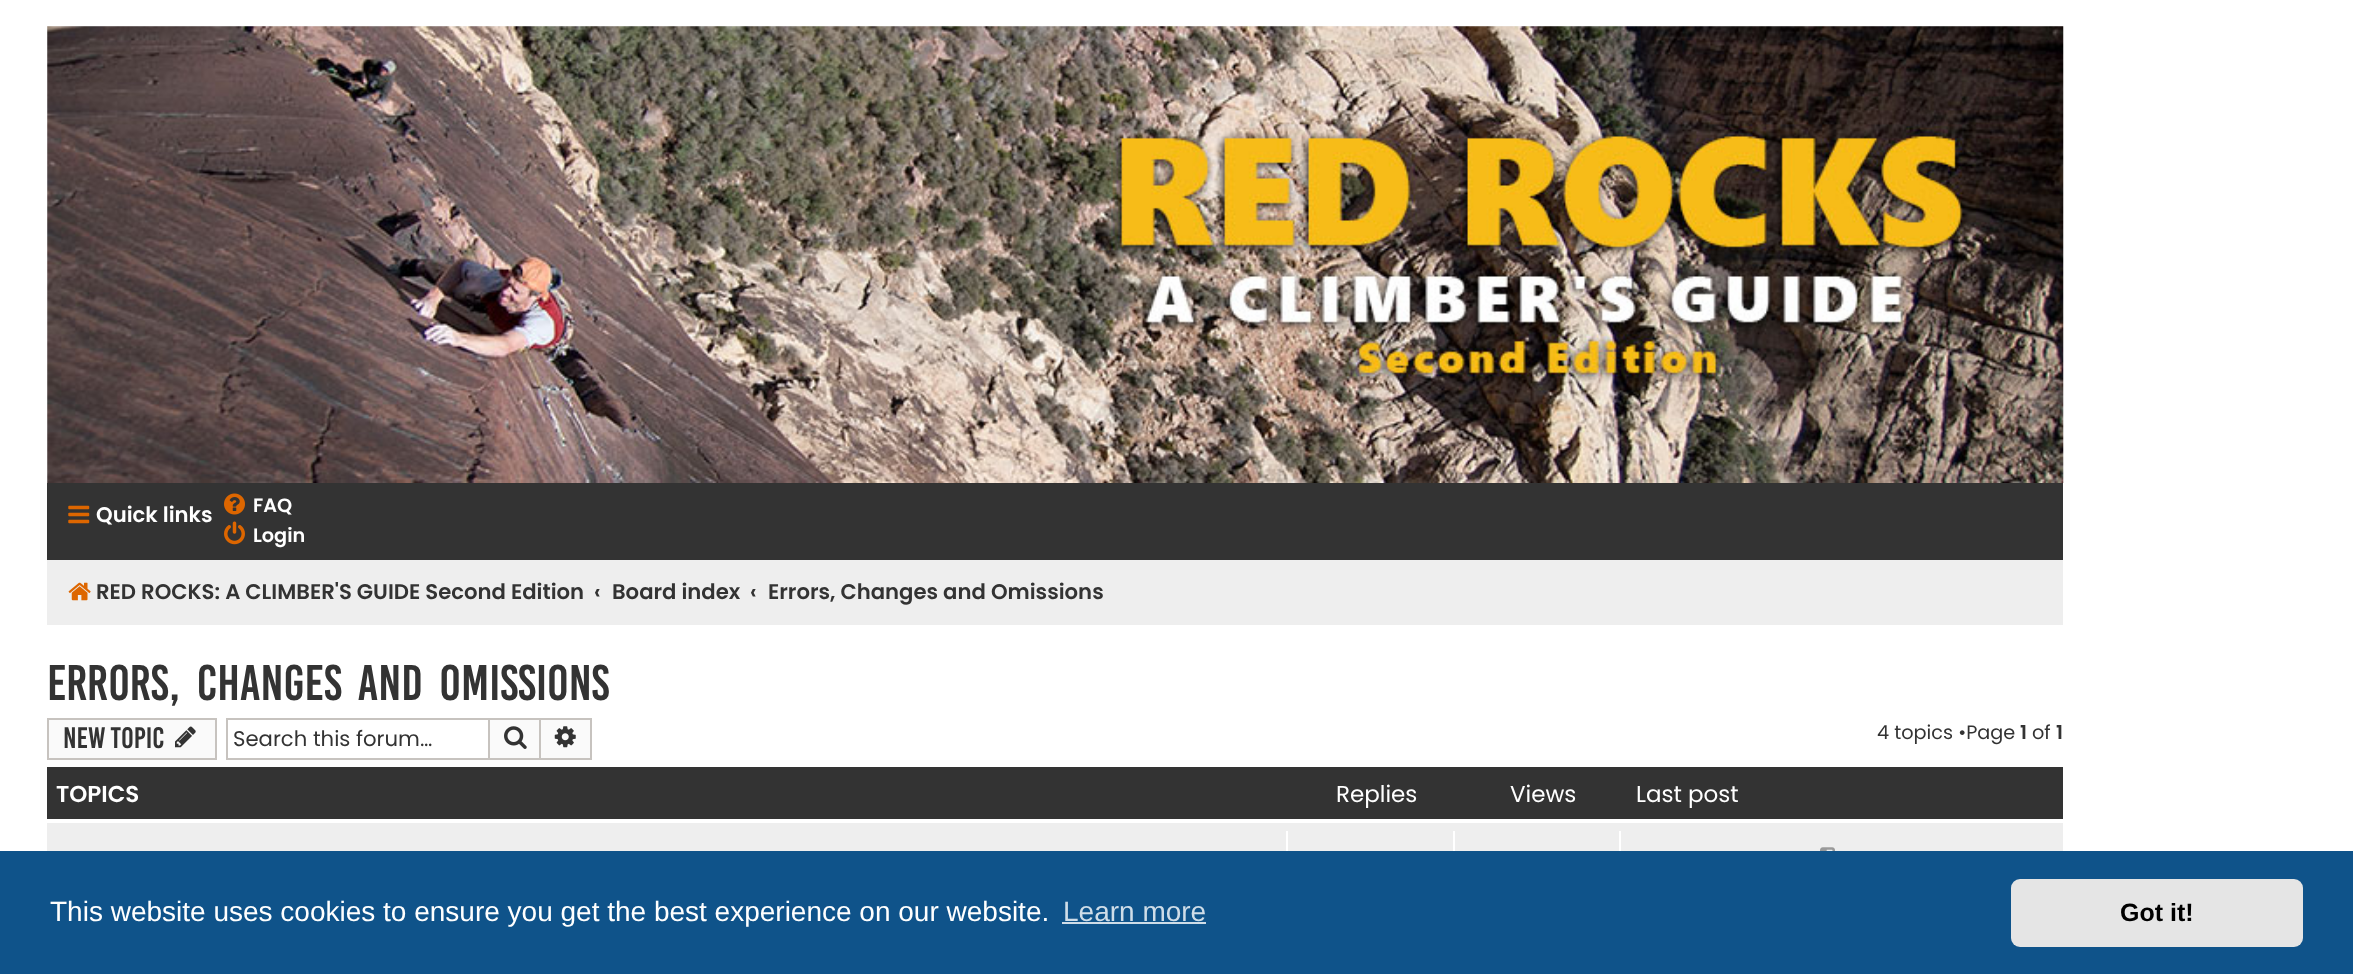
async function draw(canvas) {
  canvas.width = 2353
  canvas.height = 974
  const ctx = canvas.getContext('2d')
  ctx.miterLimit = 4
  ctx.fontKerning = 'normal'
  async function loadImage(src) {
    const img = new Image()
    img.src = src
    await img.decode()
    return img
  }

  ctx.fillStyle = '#fff'
  ctx.fillRect(0, 0, 2353, 974)
  ctx.fillStyle = '#eee'
  ctx.fillRect(47, 26, 2016, 457)
  ctx.drawImage(await loadImage('image0.png'), 47, 26, 2017, 457)
  ctx.fillStyle = '#333'
  ctx.fillRect(47, 483, 2016, 77)
  ctx.drawImage(await loadImage('image1.png'), 68, 505, 22, 19)
  ctx.font = '600 21.2px Poppins'
  ctx.fillStyle = '#fff'
  ctx.fillText('Quick links', 96, 522)
  ctx.drawImage(await loadImage('image2.png'), 224, 493, 21, 22)
  ctx.font = '600 19.25px Poppins'
  ctx.fillText('FAQ', 253, 512)
  ctx.drawImage(await loadImage('image3.png'), 224, 521, 21, 24)
  ctx.fillText('Login', 253, 542)
  ctx.fillStyle = '#eee'
  ctx.fillRect(47, 560, 2016, 65)
  ctx.drawImage(await loadImage('image4.png'), 68, 582, 23, 19)
  ctx.font = '600 21.2px Poppins'
  ctx.fillStyle = '#333'
  ctx.fillText('RED ROCKS: A CLIMBER\'S GUIDE Second Edition', 96, 599)
  ctx.fillText('‹', 594, 599)
  ctx.fillText('Board index', 612, 599)
  ctx.fillText('‹', 750, 599)
  ctx.fillText('Errors, Changes and Omissions', 768, 599)
  ctx.wordSpacing = '7px'
  ctx.font = '38.5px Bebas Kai'
  ctx.fillText('Errors, Changes and Omissions', 47, 700)
  ctx.fillStyle = '#fafafa'
  ctx.beginPath()
  ctx.rect(48, 719, 168, 40)
  ctx.fill()
  ctx.strokeStyle = '#c7c3bf'
  ctx.lineWidth = 2
  ctx.stroke()
  ctx.wordSpacing = '0px'
  ctx.font = '22.75px Bebas Kai'
  ctx.fillStyle = '#333'
  ctx.fillText('New Topic', 63, 748)
  ctx.drawImage(await loadImage('image5.png'), 175, 726, 21, 22)
  ctx.fillStyle = '#c7c3bf'
  ctx.fillRect(226, 718, 262, 2)
  ctx.fillRect(226, 758, 262, 2)
  ctx.fillRect(226, 718, 2, 42)
  ctx.font = '21.2px Poppins'
  ctx.fillStyle = '#333'
  ctx.fillText('Search this forum…', 233, 746)
  ctx.fillStyle = '#fafafa'
  ctx.beginPath()
  ctx.rect(489, 719, 51, 40)
  ctx.fill()
  ctx.stroke()
  ctx.drawImage(await loadImage('image6.png'), 504, 726, 23, 23)
  ctx.fillRect(541, 720, 49, 38)
  ctx.fillStyle = '#c7c3bf'
  ctx.fillRect(541, 718, 51, 2)
  ctx.fillRect(590, 718, 2, 42)
  ctx.fillRect(541, 758, 51, 2)
  ctx.drawImage(await loadImage('image7.png'), 554, 726, 22, 22)
  ctx.font = '19.25px Poppins'
  ctx.fillStyle = '#333'
  ctx.fillText('4 topics •Page', 1877, 739)
  ctx.font = '600 19.25px Poppins'
  ctx.fillText('1', 2020, 739)
  ctx.font = '19.25px Poppins'
  ctx.fillText('of', 2032, 739)
  ctx.font = '600 19.25px Poppins'
  ctx.fillText('1', 2056, 739)
  ctx.fillRect(47, 767, 2016, 52)
  ctx.font = '600 23px Poppins'
  ctx.fillStyle = '#fff'
  ctx.fillText('TOPICS', 56, 802)
  ctx.font = '23px Poppins'
  ctx.fillText('Replies', 1336, 802)
  ctx.fillText('Views', 1510, 802)
  ctx.fillText('Last post', 1636, 802)
  ctx.fillStyle = '#eee'
  ctx.fillRect(47, 823, 2016, 28)
  ctx.fillStyle = '#fff'
  ctx.fillRect(1286, 831, 2, 20)
  ctx.fillRect(1453, 831, 2, 20)
  ctx.fillRect(1619, 831, 2, 20)
  ctx.drawImage(await loadImage('image8.png'), 1820, 847, 15, 4)
  ctx.fillStyle = '#0f538a'
  ctx.fillRect(0, 851, 2353, 123)
  ctx.font = '28px Liberation Sans'
  ctx.fillStyle = '#fff'
  ctx.fillText('This website uses cookies to ensure you get the best experience on our website.', 50, 921)
  ctx.fillStyle = '#cfdde8'
  ctx.fillText('Learn more', 1063, 921)
  ctx.fillRect(1062, 922, 144, 2)
  ctx.fillStyle = '#e5e5e5'
  ctx.beginPath()
  ctx.roundRect(2011, 879, 292, 68, 9)
  ctx.fill()
  ctx.font = 'bold 25px Liberation Sans'
  ctx.fillStyle = '#000'
  ctx.fillText('Got it!', 2120, 921)
}

draw(document.querySelector('canvas'))
